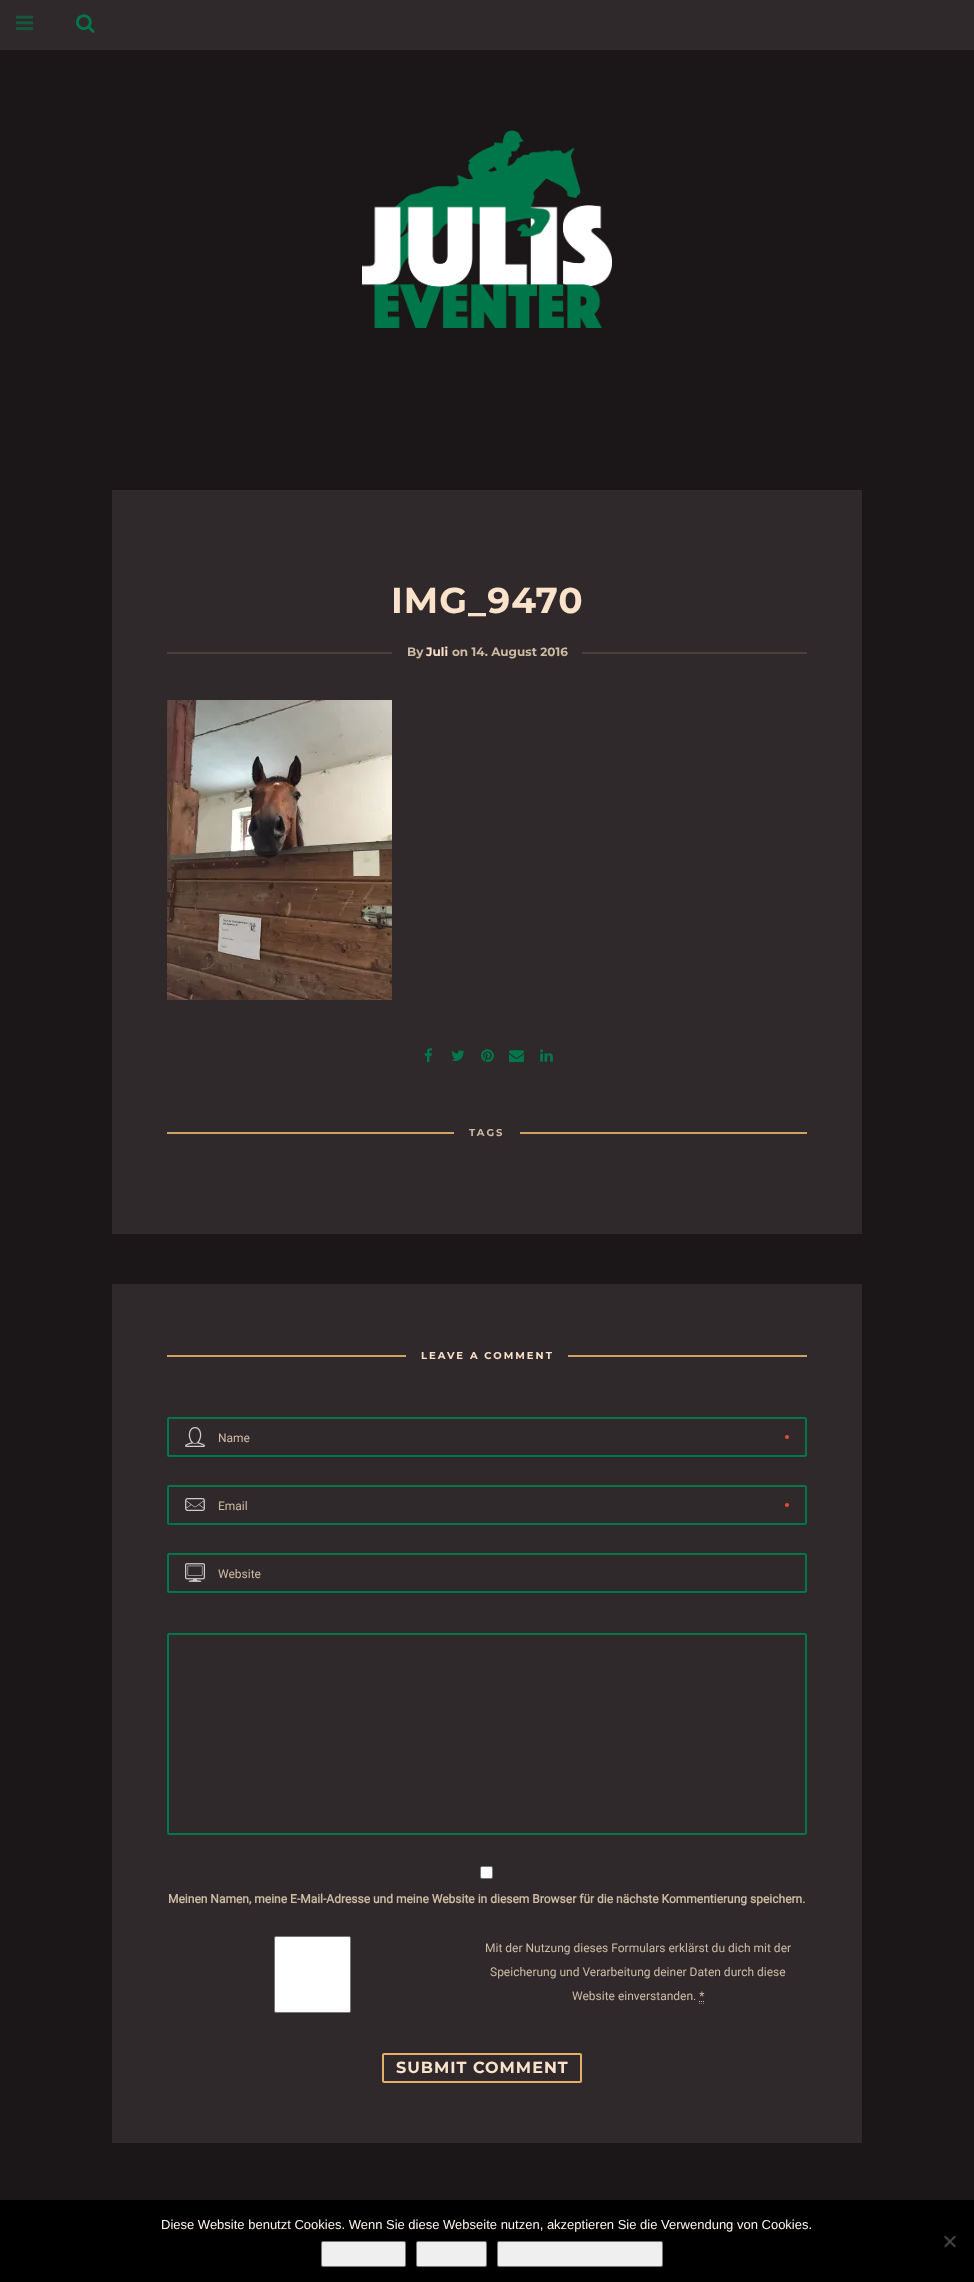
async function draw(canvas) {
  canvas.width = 974
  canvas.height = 2282
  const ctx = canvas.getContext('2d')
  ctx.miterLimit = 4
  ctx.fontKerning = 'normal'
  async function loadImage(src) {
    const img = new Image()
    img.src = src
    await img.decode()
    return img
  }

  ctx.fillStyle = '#1b1718'
  ctx.fillRect(0, 0, 974, 2282)
  ctx.fillStyle = '#30292b'
  ctx.fillRect(0, 0, 974, 50)
  ctx.drawImage(await loadImage('image0.png'), 16, 15, 18, 15)
  ctx.drawImage(await loadImage('image1.png'), 76, 14, 19, 19)
  ctx.drawImage(await loadImage('image2.png'), 362, 130, 250, 198)
  ctx.fillRect(112, 490, 750, 744)
  ctx.letterSpacing = '1px'
  ctx.font = '100 36px Montserrat'
  ctx.fillStyle = '#fbe2cb'
  ctx.fillText('IMG_9470', 391, 613)
  ctx.fillStyle = '#4a423a'
  ctx.fillRect(167, 652, 225, 2)
  ctx.letterSpacing = '0px'
  ctx.font = '100 12px Montserrat'
  ctx.fillStyle = '#cebba3'
  ctx.fillText('By', 407, 656)
  ctx.fillStyle = '#fbe2cb'
  ctx.fillText('Juli', 426, 656)
  ctx.fillStyle = '#cebba3'
  ctx.fillText('on 14. August 2016', 452, 656)
  ctx.fillStyle = '#4a423a'
  ctx.fillRect(582, 652, 225, 2)
  ctx.drawImage(await loadImage('image3.png'), 167, 700, 225, 300)
  ctx.drawImage(await loadImage('image4.png'), 424, 1048, 8, 15)
  ctx.drawImage(await loadImage('image5.png'), 451, 1050, 14, 11)
  ctx.drawImage(await loadImage('image6.png'), 481, 1049, 13, 13)
  ctx.drawImage(await loadImage('image7.png'), 509, 1050, 15, 13)
  ctx.drawImage(await loadImage('image8.png'), 540, 1049, 13, 13)
  ctx.fillStyle = '#d1a162'
  ctx.fillRect(167, 1132, 287, 2)
  ctx.letterSpacing = '2px'
  ctx.font = '100 10px Montserrat'
  ctx.fillStyle = '#cebba3'
  ctx.fillText('TAGS', 469, 1136)
  ctx.fillStyle = '#d1a162'
  ctx.fillRect(520, 1132, 287, 2)
  ctx.fillStyle = '#30292b'
  ctx.fillRect(112, 1284, 750, 859)
  ctx.fillStyle = '#d1a162'
  ctx.fillRect(167, 1355, 239, 2)
  ctx.fillStyle = '#fbe2cb'
  ctx.fillText('LEAVE A COMMENT', 421, 1359)
  ctx.fillStyle = '#d1a162'
  ctx.fillRect(568, 1355, 239, 2)
  ctx.fillStyle = '#e94b35'
  ctx.beginPath()
  ctx.arc(787, 1437, 2, 0, 2 * Math.PI)
  ctx.fill()
  ctx.drawImage(await loadImage('image9.png'), 185, 1427, 20, 20)
  ctx.beginPath()
  ctx.roundRect(168, 1418, 638, 38, 1)
  ctx.strokeStyle = '#00774a'
  ctx.lineWidth = 2
  ctx.stroke()
  ctx.letterSpacing = '0px'
  ctx.font = '12px Roboto'
  ctx.fillStyle = '#cebba3'
  ctx.fillText('Name', 218, 1442)
  ctx.fillStyle = '#e94b35'
  ctx.beginPath()
  ctx.arc(787, 1505, 2, 0, 2 * Math.PI)
  ctx.fill()
  ctx.drawImage(await loadImage('image10.png'), 185, 1498, 20, 13)
  ctx.beginPath()
  ctx.roundRect(168, 1486, 638, 38, 1)
  ctx.stroke()
  ctx.fillStyle = '#cebba3'
  ctx.fillText('Email', 218, 1510)
  ctx.drawImage(await loadImage('image11.png'), 185, 1563, 20, 19)
  ctx.beginPath()
  ctx.roundRect(168, 1554, 638, 38, 1)
  ctx.stroke()
  ctx.fillText('Website', 218, 1578)
  ctx.beginPath()
  ctx.roundRect(168, 1634, 638, 200, 1)
  ctx.stroke()
  ctx.fillStyle = '#fff'
  ctx.beginPath()
  ctx.roundRect(480.5, 1866.5, 12, 12, 1.5)
  ctx.fill()
  ctx.strokeStyle = '#767676'
  ctx.lineWidth = 1
  ctx.stroke()
  ctx.font = 'bold 12px Roboto'
  ctx.fillStyle = '#cebba3'
  ctx.fillText('Meinen Namen, meine E-Mail-Adresse und meine Website in diesem Browser für die nächste Kommentierung speichern.', 168, 1903)
  ctx.fillStyle = '#fff'
  ctx.beginPath()
  ctx.roundRect(274.5, 1936.5, 76, 76, 1.5)
  ctx.fill()
  ctx.stroke()
  ctx.font = '12px Roboto'
  ctx.fillStyle = '#cebba3'
  ctx.fillText('Mit der Nutzung dieses Formulars erklärst du dich mit der', 485, 1952)
  ctx.fillText('Speicherung und Verarbeitung deiner Daten durch diese', 490, 1976)
  ctx.fillText('Website einverstanden. *', 572, 2000)
  ctx.beginPath()
  ctx.moveTo(699, 2001.5)
  ctx.lineTo(700, 2001.5)
  ctx.moveTo(701, 2001.5)
  ctx.lineTo(702, 2001.5)
  ctx.moveTo(703, 2001.5)
  ctx.lineTo(704, 2001.5)
  ctx.strokeStyle = '#cebba3'
  ctx.stroke()
  ctx.beginPath()
  ctx.moveTo(699, 2003.5)
  ctx.lineTo(700, 2003.5)
  ctx.moveTo(701, 2003.5)
  ctx.lineTo(702, 2003.5)
  ctx.moveTo(703, 2003.5)
  ctx.lineTo(704, 2003.5)
  ctx.strokeStyle = '#777'
  ctx.stroke()
  ctx.beginPath()
  ctx.roundRect(383, 2054, 198, 28, 1)
  ctx.strokeStyle = '#e2ae69'
  ctx.lineWidth = 2
  ctx.stroke()
  ctx.letterSpacing = '1px'
  ctx.font = '100 16px Montserrat'
  ctx.fillStyle = '#fbe2cb'
  ctx.fillText('SUBMIT COMMENT', 396, 2073)
  ctx.fillStyle = '#000'
  ctx.fillRect(0, 2200, 974, 82)
  ctx.letterSpacing = '0px'
  ctx.font = '13px Liberation Sans'
  ctx.fillStyle = '#fff5ea'
  ctx.fillText('Diese Website benutzt Cookies. Wenn Sie diese Webseite nutzen, akzeptieren Sie die Verwendung von Cookies.', 161, 2229)
  ctx.fillStyle = '#efefef'
  ctx.beginPath()
  ctx.roundRect(321.5, 2241.5, 84, 25, 1.5)
  ctx.fill()
  ctx.strokeStyle = '#767676'
  ctx.lineWidth = 1
  ctx.stroke()
  ctx.beginPath()
  ctx.roundRect(416.5, 2241.5, 70, 25, 1.5)
  ctx.fill()
  ctx.stroke()
  ctx.beginPath()
  ctx.roundRect(497.5, 2241.5, 165, 25, 1.5)
  ctx.fill()
  ctx.stroke()
  ctx.fillStyle = '#404040'
  ctx.beginPath()
  ctx.moveTo(954.5, 2235.5)
  ctx.lineTo(956, 2237)
  ctx.lineTo(945.5, 2247.5)
  ctx.lineTo(944, 2246)
  ctx.closePath()
  ctx.fill()
  ctx.beginPath()
  ctx.moveTo(944, 2237)
  ctx.lineTo(945.5, 2235.5)
  ctx.lineTo(956, 2246)
  ctx.lineTo(954.5, 2247.5)
  ctx.closePath()
  ctx.fill()
}

draw(document.querySelector('canvas'))
